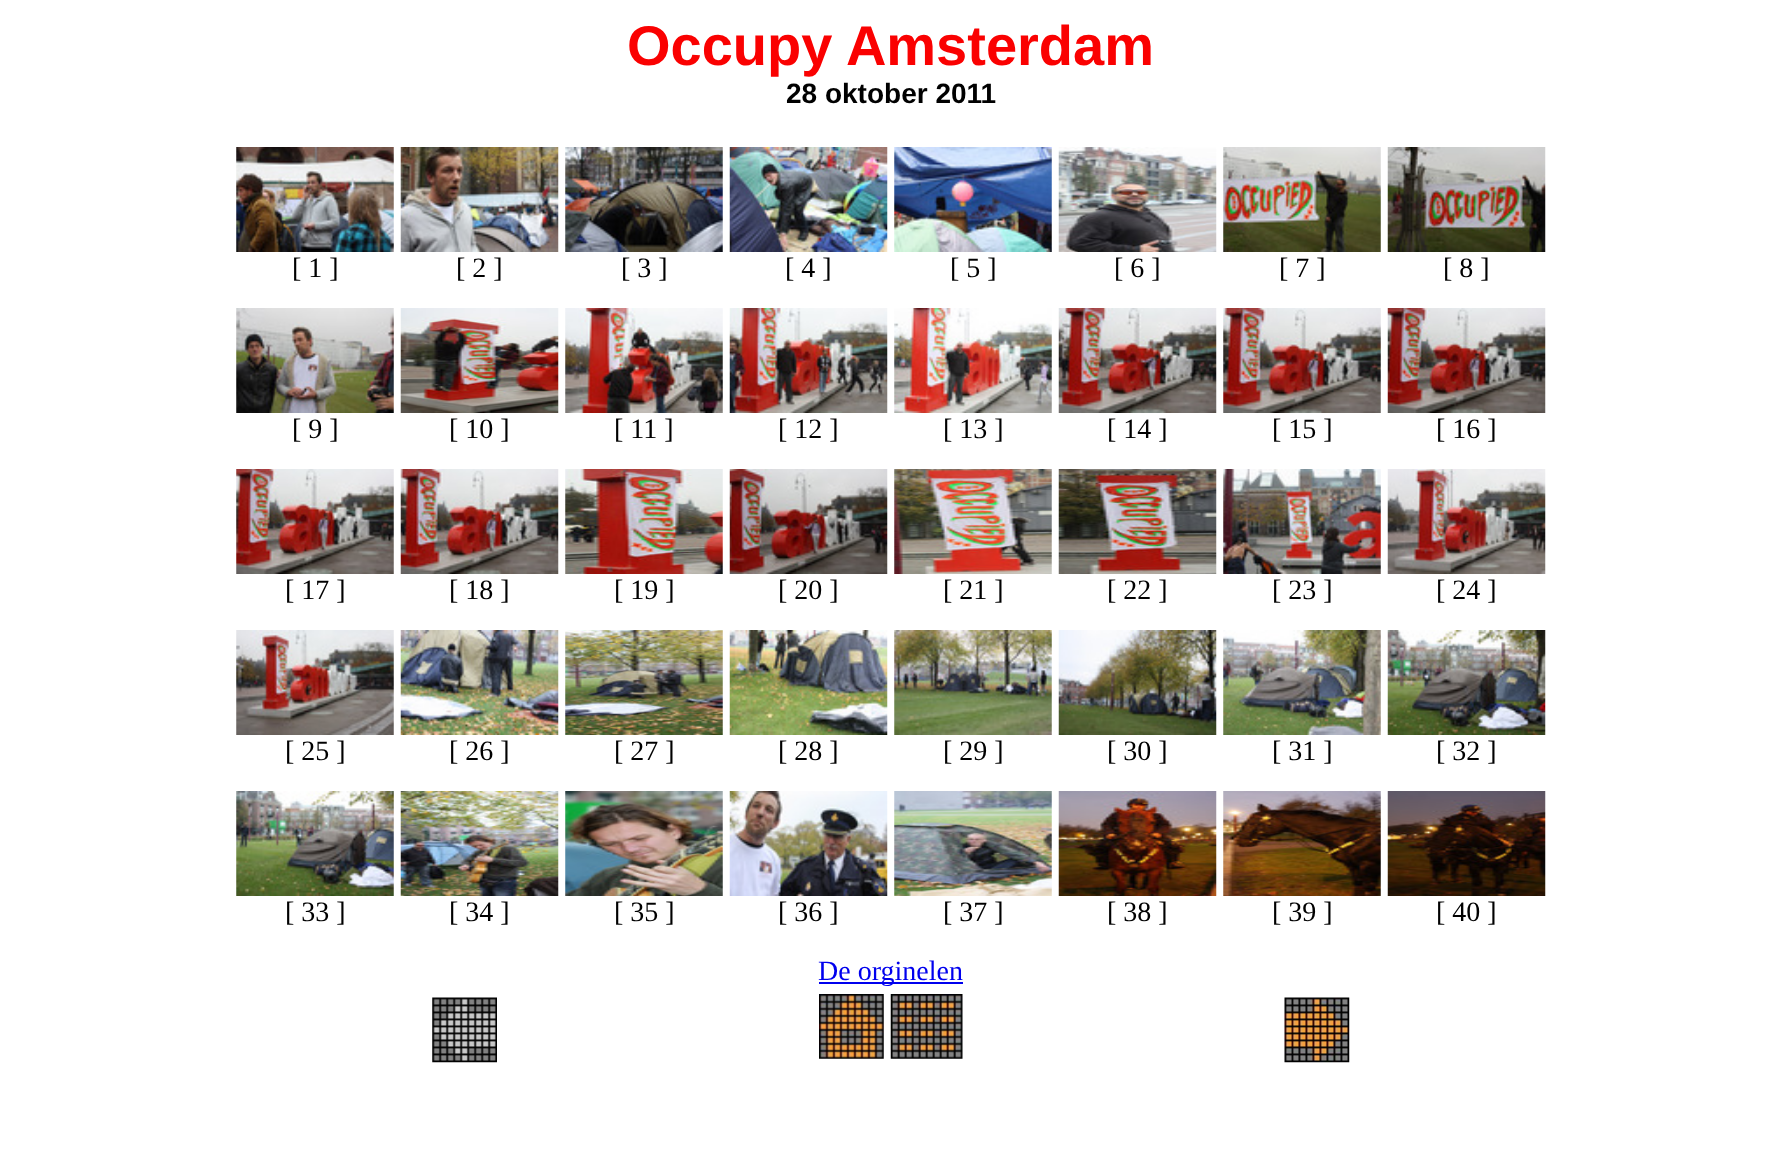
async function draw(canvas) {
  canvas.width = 1780
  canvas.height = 1173
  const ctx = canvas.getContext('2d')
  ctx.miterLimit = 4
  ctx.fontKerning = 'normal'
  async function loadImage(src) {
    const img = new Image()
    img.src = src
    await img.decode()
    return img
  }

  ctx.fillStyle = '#fff'
  ctx.fillRect(0, 0, 1780, 1173)
  ctx.font = 'bold 56px Liberation Sans'
  ctx.fillStyle = '#fa0101'
  ctx.fillText('Occupy Amsterdam', 627, 65)
  ctx.font = 'bold 28px Liberation Sans'
  ctx.fillStyle = '#000'
  ctx.fillText('28 oktober 2011', 786, 103)
  ctx.drawImage(await loadImage('image0.png'), 236, 147, 158, 105)
  ctx.font = '28px Liberation Serif'
  ctx.fillText('[ 1 ]', 292, 277)
  ctx.drawImage(await loadImage('image1.png'), 400, 147, 159, 105)
  ctx.fillText('[ 2 ]', 456, 277)
  ctx.drawImage(await loadImage('image2.png'), 565, 147, 158, 105)
  ctx.fillText('[ 3 ]', 621, 277)
  ctx.drawImage(await loadImage('image3.png'), 729, 147, 159, 105)
  ctx.fillText('[ 4 ]', 785, 277)
  ctx.drawImage(await loadImage('image4.png'), 894, 147, 158, 105)
  ctx.fillText('[ 5 ]', 950, 277)
  ctx.drawImage(await loadImage('image5.png'), 1058, 147, 159, 105)
  ctx.fillText('[ 6 ]', 1114, 277)
  ctx.drawImage(await loadImage('image6.png'), 1223, 147, 158, 105)
  ctx.fillText('[ 7 ]', 1279, 277)
  ctx.drawImage(await loadImage('image7.png'), 1387, 147, 159, 105)
  ctx.fillText('[ 8 ]', 1443, 277)
  ctx.drawImage(await loadImage('image8.png'), 236, 308, 158, 105)
  ctx.fillText('[ 9 ]', 292, 438)
  ctx.drawImage(await loadImage('image9.png'), 400, 308, 159, 105)
  ctx.fillText('[ 10 ]', 449, 438)
  ctx.drawImage(await loadImage('image10.png'), 565, 308, 158, 105)
  ctx.fillText('[ 11 ]', 614, 438)
  ctx.drawImage(await loadImage('image11.png'), 729, 308, 159, 105)
  ctx.fillText('[ 12 ]', 778, 438)
  ctx.drawImage(await loadImage('image12.png'), 894, 308, 158, 105)
  ctx.fillText('[ 13 ]', 943, 438)
  ctx.drawImage(await loadImage('image13.png'), 1058, 308, 159, 105)
  ctx.fillText('[ 14 ]', 1107, 438)
  ctx.drawImage(await loadImage('image14.png'), 1223, 308, 158, 105)
  ctx.fillText('[ 15 ]', 1272, 438)
  ctx.drawImage(await loadImage('image15.png'), 1387, 308, 159, 105)
  ctx.fillText('[ 16 ]', 1436, 438)
  ctx.drawImage(await loadImage('image16.png'), 236, 469, 158, 105)
  ctx.fillText('[ 17 ]', 285, 599)
  ctx.drawImage(await loadImage('image17.png'), 400, 469, 159, 105)
  ctx.fillText('[ 18 ]', 449, 599)
  ctx.drawImage(await loadImage('image18.png'), 565, 469, 158, 105)
  ctx.fillText('[ 19 ]', 614, 599)
  ctx.drawImage(await loadImage('image19.png'), 729, 469, 159, 105)
  ctx.fillText('[ 20 ]', 778, 599)
  ctx.drawImage(await loadImage('image20.png'), 894, 469, 158, 105)
  ctx.fillText('[ 21 ]', 943, 599)
  ctx.drawImage(await loadImage('image21.png'), 1058, 469, 159, 105)
  ctx.fillText('[ 22 ]', 1107, 599)
  ctx.drawImage(await loadImage('image22.png'), 1223, 469, 158, 105)
  ctx.fillText('[ 23 ]', 1272, 599)
  ctx.drawImage(await loadImage('image23.png'), 1387, 469, 159, 105)
  ctx.fillText('[ 24 ]', 1436, 599)
  ctx.drawImage(await loadImage('image24.png'), 236, 630, 158, 105)
  ctx.fillText('[ 25 ]', 285, 760)
  ctx.drawImage(await loadImage('image25.png'), 400, 630, 159, 105)
  ctx.fillText('[ 26 ]', 449, 760)
  ctx.drawImage(await loadImage('image26.png'), 565, 630, 158, 105)
  ctx.fillText('[ 27 ]', 614, 760)
  ctx.drawImage(await loadImage('image27.png'), 729, 630, 159, 105)
  ctx.fillText('[ 28 ]', 778, 760)
  ctx.drawImage(await loadImage('image28.png'), 894, 630, 158, 105)
  ctx.fillText('[ 29 ]', 943, 760)
  ctx.drawImage(await loadImage('image29.png'), 1058, 630, 159, 105)
  ctx.fillText('[ 30 ]', 1107, 760)
  ctx.drawImage(await loadImage('image30.png'), 1223, 630, 158, 105)
  ctx.fillText('[ 31 ]', 1272, 760)
  ctx.drawImage(await loadImage('image31.png'), 1387, 630, 159, 105)
  ctx.fillText('[ 32 ]', 1436, 760)
  ctx.drawImage(await loadImage('image32.png'), 236, 791, 158, 105)
  ctx.fillText('[ 33 ]', 285, 921)
  ctx.drawImage(await loadImage('image33.png'), 400, 791, 159, 105)
  ctx.fillText('[ 34 ]', 449, 921)
  ctx.drawImage(await loadImage('image34.png'), 565, 791, 158, 105)
  ctx.fillText('[ 35 ]', 614, 921)
  ctx.drawImage(await loadImage('image35.png'), 729, 791, 159, 105)
  ctx.fillText('[ 36 ]', 778, 921)
  ctx.drawImage(await loadImage('image36.png'), 894, 791, 158, 105)
  ctx.fillText('[ 37 ]', 943, 921)
  ctx.drawImage(await loadImage('image37.png'), 1058, 791, 159, 105)
  ctx.fillText('[ 38 ]', 1107, 921)
  ctx.drawImage(await loadImage('image38.png'), 1223, 791, 158, 105)
  ctx.fillText('[ 39 ]', 1272, 921)
  ctx.drawImage(await loadImage('image39.png'), 1387, 791, 159, 105)
  ctx.fillText('[ 40 ]', 1436, 921)
  ctx.fillStyle = '#00e'
  ctx.fillRect(819, 982, 144, 2)
  ctx.fillText('De orginelen', 818, 980)
  ctx.drawImage(await loadImage('image40.png'), 432, 997, 65, 66)
  ctx.drawImage(await loadImage('image41.png'), 819, 994, 65, 65)
  ctx.drawImage(await loadImage('image42.png'), 890, 994, 73, 65)
  ctx.drawImage(await loadImage('image43.png'), 1284, 997, 66, 66)
}

draw(document.querySelector('canvas'))
